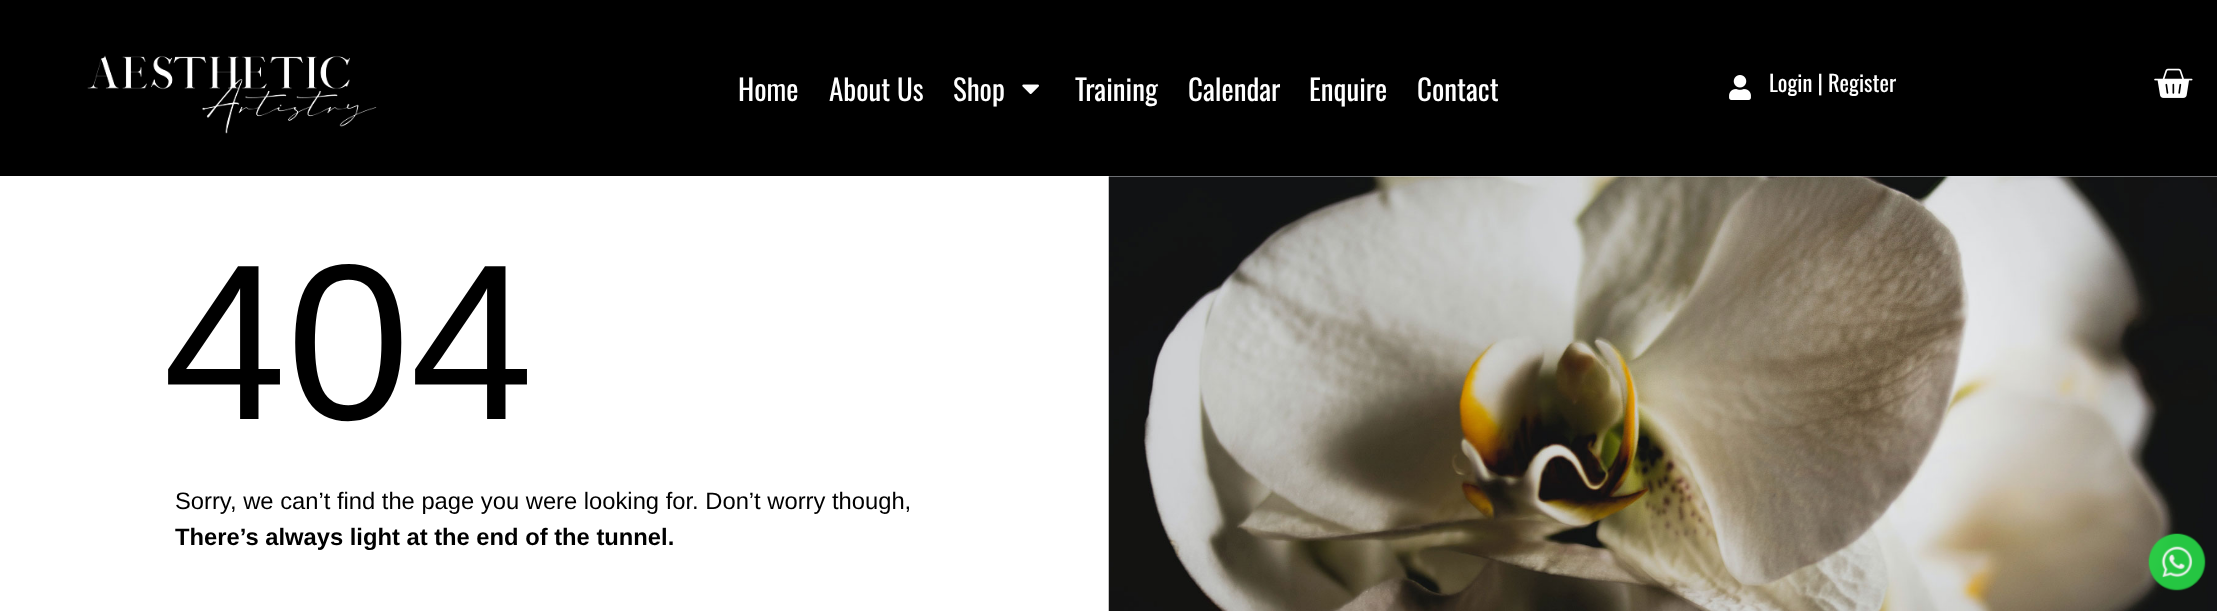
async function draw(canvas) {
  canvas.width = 2217
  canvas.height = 611
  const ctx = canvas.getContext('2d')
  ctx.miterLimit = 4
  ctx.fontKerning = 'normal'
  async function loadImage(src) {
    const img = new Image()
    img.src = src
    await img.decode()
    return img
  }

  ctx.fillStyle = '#e5e9ef'
  ctx.fillRect(0, 0, 2217, 611)
  ctx.fillStyle = '#000'
  ctx.fillRect(0, 0, 2217, 176)
  ctx.drawImage(await loadImage('image0.png'), 87, 55, 290, 79)
  ctx.font = '29px Oswald'
  ctx.fillStyle = '#fff'
  ctx.fillText('Home', 738, 101)
  ctx.fillText('About Us', 829, 101)
  ctx.fillText('Shop', 953, 101)
  ctx.drawImage(await loadImage('image1.png'), 1022, 84, 17, 10)
  ctx.fillText('Training', 1075, 101)
  ctx.fillText('Calendar', 1188, 101)
  ctx.fillText('Enquire', 1309, 101)
  ctx.fillText('Contact', 1417, 101)
  ctx.drawImage(await loadImage('image2.png'), 1729, 75, 22, 25)
  ctx.font = '22.5px Oswald'
  ctx.fillText('Login | Register', 1769, 92)
  ctx.drawImage(await loadImage('image3.png'), 2154, 68, 39, 30)
  ctx.fillRect(0, 176, 1109, 435)
  ctx.font = '222px Liberation Sans'
  ctx.fillStyle = '#000'
  ctx.fillText('404', 163, 419)
  ctx.font = '23.75px Liberation Sans'
  ctx.fillText('Sorry, we can’t find the page you were looking for. Don’t worry though,', 175, 509)
  ctx.font = 'bold 23.75px Liberation Sans'
  ctx.fillText('There’s always light at the end of the tunnel.', 175, 545)
  ctx.drawImage(await loadImage('image4.png'), 1108, 176, 1109, 435)
  ctx.drawImage(await loadImage('image5.png'), 2148, 533, 58, 58)
}

draw(document.querySelector('canvas'))
